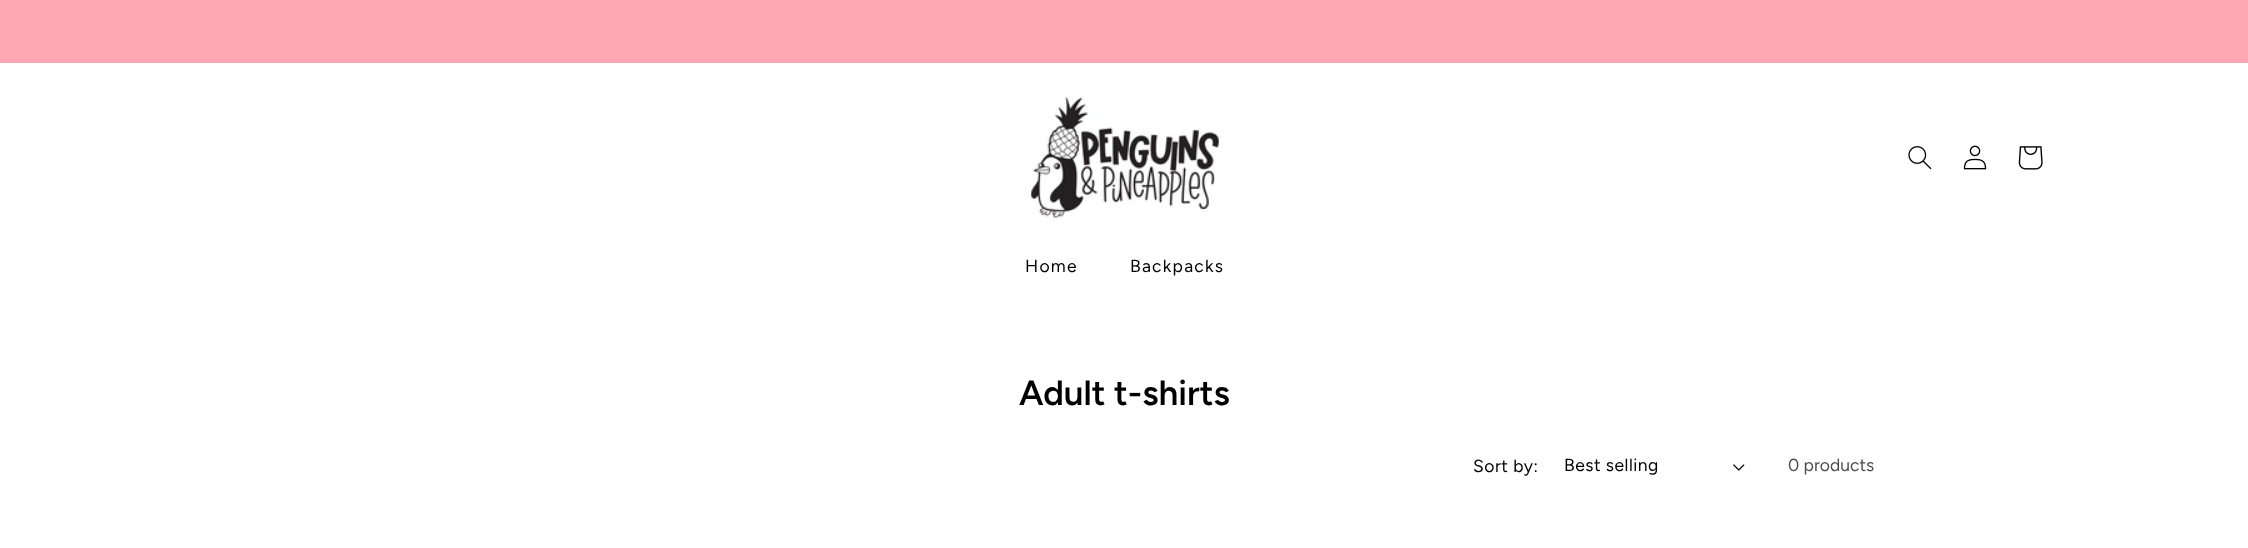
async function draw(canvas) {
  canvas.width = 2248
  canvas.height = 548
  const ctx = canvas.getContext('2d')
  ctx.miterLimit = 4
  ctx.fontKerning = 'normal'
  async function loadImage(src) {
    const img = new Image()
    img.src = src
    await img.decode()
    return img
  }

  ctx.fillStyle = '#fff'
  ctx.fillRect(0, 0, 2248, 548)
  ctx.fillStyle = '#fea7b4'
  ctx.fillRect(0, 0, 2248, 63)
  ctx.drawImage(await loadImage('image0.png'), 1031, 97, 188, 121)
  ctx.drawImage(await loadImage('image1.png'), 1908, 146, 24, 24)
  ctx.drawImage(await loadImage('image2.png'), 1963, 145, 24, 25)
  ctx.drawImage(await loadImage('image3.png'), 2018, 146, 25, 24)
  ctx.letterSpacing = '1.25px'
  ctx.font = '17.5px Figtree'
  ctx.fillStyle = '#000'
  ctx.fillText('Home', 1025, 272)
  ctx.fillText('Backpacks', 1130, 272)
  ctx.letterSpacing = '0px'
  ctx.font = '600 35px Figtree'
  ctx.fillText('Adult t-shirts', 1019, 405)
  ctx.letterSpacing = '0.5px'
  ctx.font = '17.5px Figtree'
  ctx.fillText('Sort by:', 1473, 472)
  ctx.fillText('Best selling', 1564, 471)
  ctx.drawImage(await loadImage('image4.png'), 1733, 464, 12, 7)
  ctx.letterSpacing = '0px'
  ctx.fillStyle = '#4d4d4d'
  ctx.fillText('0 products', 1788, 471)
}

draw(document.querySelector('canvas'))
